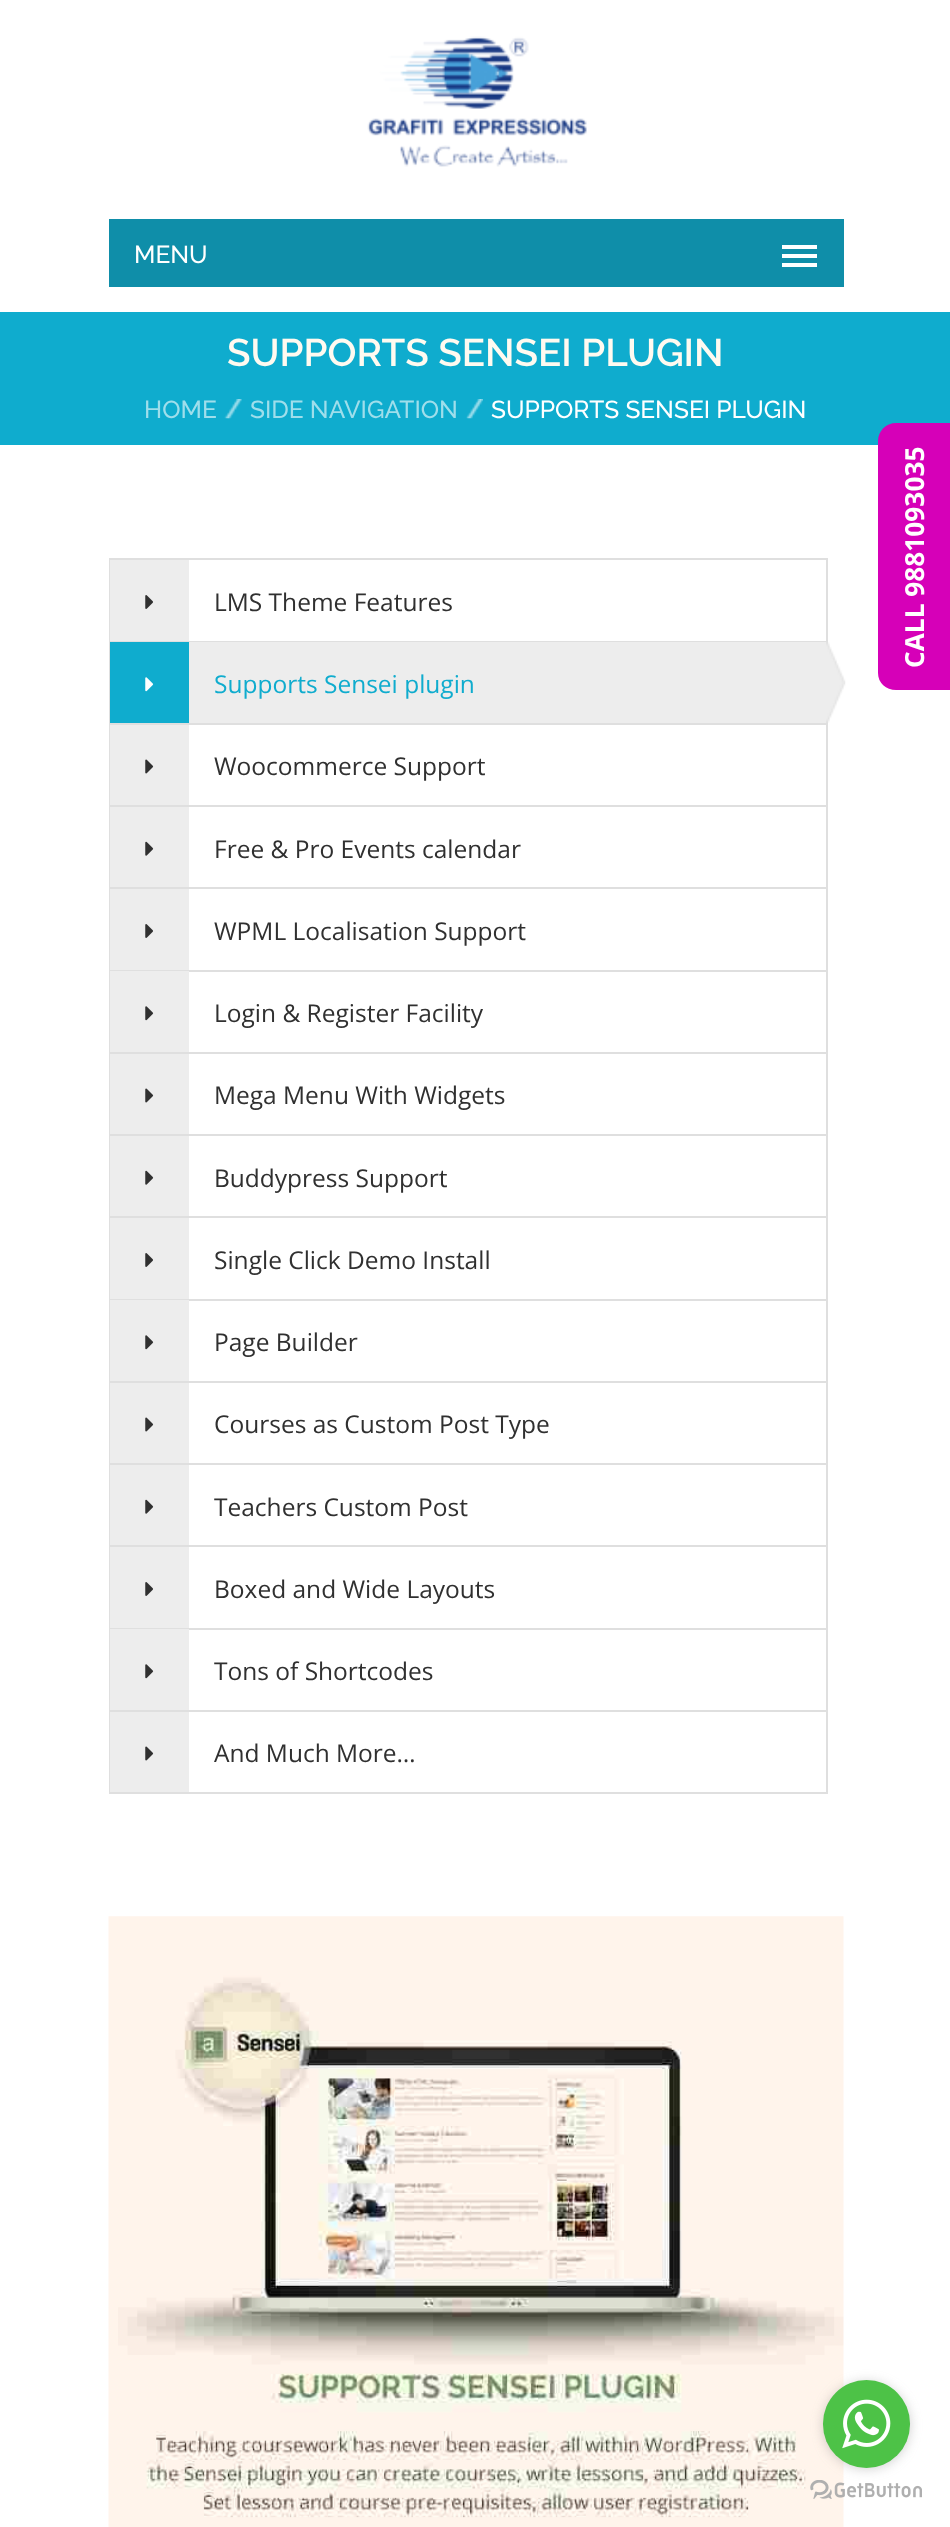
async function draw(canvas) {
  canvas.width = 950
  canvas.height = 2527
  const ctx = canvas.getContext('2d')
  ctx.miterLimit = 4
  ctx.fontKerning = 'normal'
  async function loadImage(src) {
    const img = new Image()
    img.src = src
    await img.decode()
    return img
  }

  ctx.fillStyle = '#fff'
  ctx.fillRect(0, 0, 950, 2527)
  ctx.drawImage(await loadImage('image0.png'), 367, 36, 220, 131)
  ctx.fillStyle = '#0f8ea9'
  ctx.fillRect(109, 219, 735, 68)
  ctx.font = '500 24.5px Raleway'
  ctx.fillStyle = '#fff'
  ctx.fillText('MENU', 134, 263)
  ctx.fillRect(782, 254, 35, 4)
  ctx.fillRect(782, 245, 35, 4)
  ctx.fillRect(782, 263, 35, 4)
  ctx.fillStyle = '#0facce'
  ctx.fillRect(0, 312, 950, 133)
  ctx.font = '600 38.5px Raleway'
  ctx.fillStyle = '#fffaf0'
  ctx.fillText('SUPPORTS SENSEI PLUGIN', 227, 366)
  ctx.font = '500 24.5px Raleway'
  ctx.fillStyle = '#9fdeeb'
  ctx.fillText('HOME', 144, 418)
  ctx.drawImage(await loadImage('image1.png'), 224, 399, 18, 20)
  ctx.fillText('SIDE NAVIGATION', 250, 418)
  ctx.drawImage(await loadImage('image2.png'), 466, 399, 17, 20)
  ctx.fillStyle = '#fff'
  ctx.fillText('SUPPORTS SENSEI PLUGIN', 491, 418)
  ctx.fillStyle = '#dfdfdf'
  ctx.fillRect(109, 558, 719, 2)
  ctx.fillRect(826, 558, 2, 1236)
  ctx.fillRect(109, 558, 2, 1236)
  ctx.fillRect(110, 641, 716, 1)
  ctx.fillStyle = '#ededed'
  ctx.fillRect(110, 560, 79, 81)
  ctx.drawImage(await loadImage('image3.png'), 145, 595, 8, 14)
  ctx.font = '24.5px Open Sans'
  ctx.fillStyle = '#303030'
  ctx.fillText('LMS Theme Features', 214, 611)
  ctx.fillStyle = '#dfdfdf'
  ctx.fillRect(110, 723, 716, 2)
  ctx.fillStyle = '#ededed'
  ctx.fillRect(189, 642, 637, 81)
  ctx.fillStyle = '#0facce'
  ctx.fillRect(110, 642, 79, 81)
  ctx.drawImage(await loadImage('image4.png'), 145, 677, 9, 15)
  ctx.fillText('Supports Sensei plugin', 214, 693)
  ctx.drawImage(await loadImage('image5.png'), 826, 642, 20, 81)
  ctx.fillStyle = '#dfdfdf'
  ctx.fillRect(110, 805, 716, 2)
  ctx.fillStyle = '#ededed'
  ctx.fillRect(110, 725, 79, 80)
  ctx.drawImage(await loadImage('image6.png'), 145, 759, 9, 15)
  ctx.fillStyle = '#303030'
  ctx.fillText('Woocommerce Support', 214, 775)
  ctx.fillStyle = '#dfdfdf'
  ctx.fillRect(110, 887, 716, 2)
  ctx.fillStyle = '#ededed'
  ctx.fillRect(110, 807, 79, 80)
  ctx.drawImage(await loadImage('image7.png'), 145, 841, 9, 15)
  ctx.fillStyle = '#303030'
  ctx.fillText('Free & Pro Events calendar', 214, 858)
  ctx.fillStyle = '#dfdfdf'
  ctx.fillRect(110, 970, 716, 2)
  ctx.fillStyle = '#ededed'
  ctx.fillRect(110, 889, 79, 81)
  ctx.drawImage(await loadImage('image3.png'), 145, 924, 8, 14)
  ctx.fillStyle = '#303030'
  ctx.fillText('WPML Localisation Support', 214, 940)
  ctx.fillStyle = '#dfdfdf'
  ctx.fillRect(110, 1052, 716, 2)
  ctx.fillStyle = '#ededed'
  ctx.fillRect(110, 971, 79, 81)
  ctx.drawImage(await loadImage('image8.png'), 145, 1006, 9, 15)
  ctx.fillStyle = '#303030'
  ctx.fillText('Login & Register Facility', 214, 1022)
  ctx.fillStyle = '#dfdfdf'
  ctx.fillRect(110, 1134, 716, 2)
  ctx.fillStyle = '#ededed'
  ctx.fillRect(110, 1054, 79, 80)
  ctx.drawImage(await loadImage('image6.png'), 145, 1088, 9, 15)
  ctx.fillStyle = '#303030'
  ctx.fillText('Mega Menu With Widgets', 214, 1104)
  ctx.fillStyle = '#dfdfdf'
  ctx.fillRect(110, 1216, 716, 2)
  ctx.fillStyle = '#ededed'
  ctx.fillRect(110, 1136, 79, 80)
  ctx.drawImage(await loadImage('image7.png'), 145, 1170, 9, 15)
  ctx.fillStyle = '#303030'
  ctx.fillText('Buddypress Support', 214, 1187)
  ctx.fillStyle = '#dfdfdf'
  ctx.fillRect(110, 1299, 716, 2)
  ctx.fillStyle = '#ededed'
  ctx.fillRect(110, 1218, 79, 81)
  ctx.drawImage(await loadImage('image3.png'), 145, 1253, 8, 14)
  ctx.fillStyle = '#303030'
  ctx.fillText('Single Click Demo Install', 214, 1269)
  ctx.fillStyle = '#dfdfdf'
  ctx.fillRect(110, 1381, 716, 2)
  ctx.fillStyle = '#ededed'
  ctx.fillRect(110, 1300, 79, 81)
  ctx.drawImage(await loadImage('image8.png'), 145, 1335, 9, 15)
  ctx.fillStyle = '#303030'
  ctx.fillText('Page Builder', 214, 1351)
  ctx.fillStyle = '#dfdfdf'
  ctx.fillRect(110, 1463, 716, 2)
  ctx.fillStyle = '#ededed'
  ctx.fillRect(110, 1383, 79, 80)
  ctx.drawImage(await loadImage('image6.png'), 145, 1417, 9, 15)
  ctx.fillStyle = '#303030'
  ctx.fillText('Courses as Custom Post Type', 214, 1433)
  ctx.fillStyle = '#dfdfdf'
  ctx.fillRect(110, 1545, 716, 2)
  ctx.fillStyle = '#ededed'
  ctx.fillRect(110, 1465, 79, 80)
  ctx.drawImage(await loadImage('image7.png'), 145, 1499, 9, 15)
  ctx.fillStyle = '#303030'
  ctx.fillText('Teachers Custom Post', 214, 1516)
  ctx.fillStyle = '#dfdfdf'
  ctx.fillRect(110, 1628, 716, 2)
  ctx.fillStyle = '#ededed'
  ctx.fillRect(110, 1547, 79, 81)
  ctx.drawImage(await loadImage('image3.png'), 145, 1582, 8, 14)
  ctx.fillStyle = '#303030'
  ctx.fillText('Boxed and Wide Layouts', 214, 1598)
  ctx.fillStyle = '#dfdfdf'
  ctx.fillRect(110, 1710, 716, 2)
  ctx.fillStyle = '#ededed'
  ctx.fillRect(110, 1629, 79, 81)
  ctx.drawImage(await loadImage('image8.png'), 145, 1664, 9, 15)
  ctx.fillStyle = '#303030'
  ctx.fillText('Tons of Shortcodes', 214, 1680)
  ctx.fillStyle = '#dfdfdf'
  ctx.fillRect(110, 1792, 716, 2)
  ctx.fillStyle = '#ededed'
  ctx.fillRect(110, 1712, 79, 80)
  ctx.drawImage(await loadImage('image6.png'), 145, 1746, 9, 15)
  ctx.fillStyle = '#303030'
  ctx.fillText('And Much More…', 214, 1762)
  ctx.drawImage(await loadImage('image9.png'), 108, 1916, 736, 611)
  ctx.fillStyle = '#d600b8'
  ctx.beginPath()
  ctx.moveTo(878, 673)
  ctx.lineTo(878, 441)
  ctx.bezierCurveTo(878, 431, 886, 423, 896, 423)
  ctx.lineTo(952, 423)
  ctx.lineTo(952, 690)
  ctx.lineTo(896, 690)
  ctx.bezierCurveTo(886, 690, 878, 683, 878, 673)
  ctx.closePath()
  ctx.fill()
  ctx.font = 'bold 26.25px Open Sans'
  ctx.fillStyle = '#fff'
  ctx.save()
  ctx.translate(924, 668)
  ctx.rotate(-90 * Math.PI / 180)
  ctx.fillText('CALL 9881093035', 0, 0)
  ctx.restore()
  ctx.drawImage(await loadImage('image11.png'), 810, 2480, 112, 19)
  ctx.fillStyle = '#88888866'
  ctx.filter = 'blur(6px)'
  ctx.beginPath()
  ctx.roundRect(823, 2382, 87, 87, 43.5)
  ctx.fill()
  ctx.filter = 'none'
  ctx.fillStyle = '#4dc247'
  ctx.beginPath()
  ctx.roundRect(823, 2380, 87, 88, 43.5)
  ctx.fill()
  ctx.drawImage(await loadImage('image10.png'), 842, 2399, 49, 50)
}

draw(document.querySelector('canvas'))
